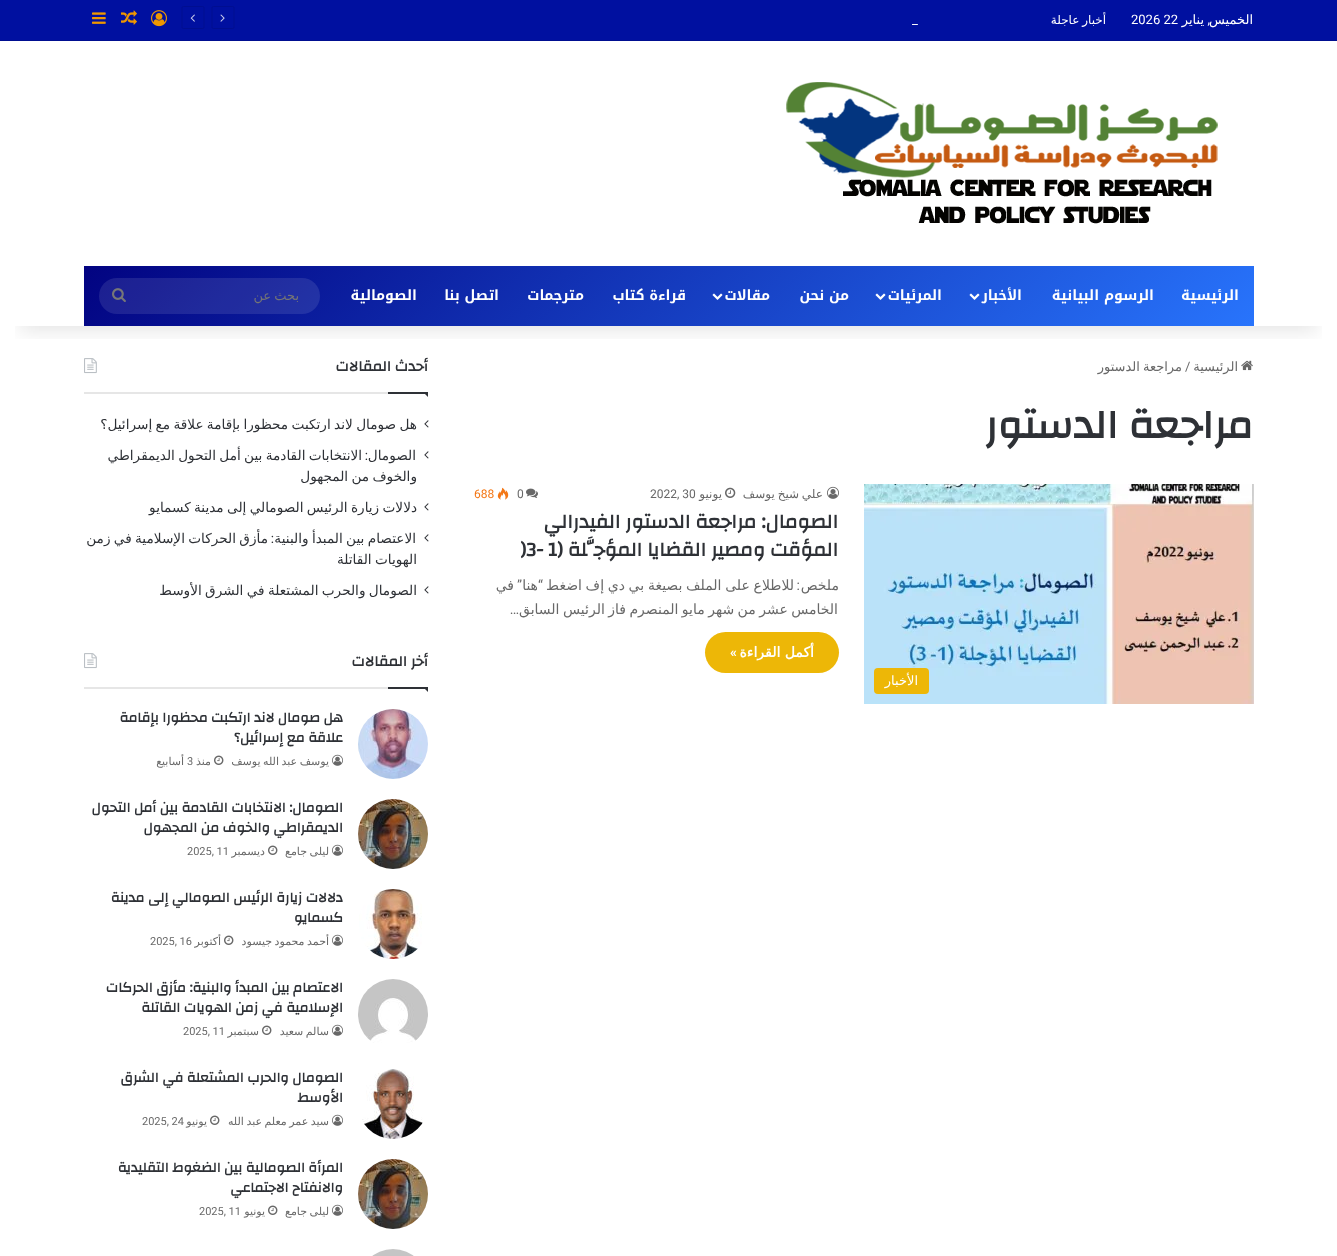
async function draw(canvas) {
  canvas.width = 1337
  canvas.height = 1256
  const ctx = canvas.getContext('2d')
  ctx.miterLimit = 4
  ctx.fontKerning = 'normal'
  async function loadImage(src) {
    const img = new Image()
    img.src = src
    await img.decode()
    return img
  }
  let gradient

  ctx.fillStyle = '#fff'
  ctx.fillRect(0, 0, 1337, 1256)
  ctx.drawImage(await loadImage('image10.png'), 1241, 360, 12, 11)
  ctx.drawImage(await loadImage('image16.png'), 84, 358, 13, 16)
  ctx.save()
  ctx.beginPath()
  ctx.rect(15, 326, 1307, 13)
  ctx.clip()
  ctx.fillStyle = '#0000001a'
  ctx.filter = 'blur(10px)'
  ctx.beginPath()
  ctx.rect(20, 45, 1297, 286)
  ctx.fill()
  ctx.filter = 'none'
  ctx.restore()
  ctx.fillStyle = '#0010a0'
  ctx.fillRect(0, 0, 1337, 40)
  ctx.fillStyle = '#000e90'
  ctx.fillRect(0, 40, 1337, 1)
  ctx.direction = 'rtl'
  ctx.font = '13px DejaVu Sans'
  ctx.fillStyle = '#fff'
  ctx.fillText('الخميس', 1253, 24)
  ctx.font = '13px Roboto'
  ctx.fillText(',', 1210, 24)
  ctx.font = '13px DejaVu Sans'
  ctx.fillText('يناير', 1204, 24)
  ctx.direction = 'ltr'
  ctx.font = '13px Roboto'
  ctx.fillText('2026 22', 1131, 24)
  ctx.wordSpacing = '-1px'
  ctx.direction = 'rtl'
  ctx.font = '12px DejaVu Sans'
  ctx.fillText('أخبار عاجلة', 1106, 24)
  ctx.wordSpacing = '0px'
  ctx.direction = 'ltr'
  ctx.font = '13px Roboto'
  ctx.fillText('_', 912, 24)
  ctx.beginPath()
  ctx.moveTo(232.5, 28.5)
  ctx.lineTo(213.5, 28.5)
  ctx.bezierCurveTo(212.5, 28.5, 212, 28, 212, 27)
  ctx.lineTo(212, 8)
  ctx.bezierCurveTo(212, 7, 212.5, 6.5, 213.5, 6.5)
  ctx.lineTo(232.5, 6.5)
  ctx.bezierCurveTo(233.5, 6.5, 234, 7, 234, 8)
  ctx.lineTo(234, 27)
  ctx.bezierCurveTo(234, 28, 233.5, 28.5, 232.5, 28.5)
  ctx.closePath()
  ctx.strokeStyle = '#000e90'
  ctx.stroke()
  ctx.drawImage(await loadImage('image0.png'), 220, 14, 5, 8)
  ctx.beginPath()
  ctx.moveTo(202.5, 28.5)
  ctx.lineTo(183.5, 28.5)
  ctx.bezierCurveTo(182.5, 28.5, 182, 28, 182, 27)
  ctx.lineTo(182, 8)
  ctx.bezierCurveTo(182, 7, 182.5, 6.5, 183.5, 6.5)
  ctx.lineTo(202.5, 6.5)
  ctx.bezierCurveTo(203.5, 6.5, 204, 7, 204, 8)
  ctx.lineTo(204, 27)
  ctx.bezierCurveTo(204, 28, 203.5, 28.5, 202.5, 28.5)
  ctx.closePath()
  ctx.stroke()
  ctx.drawImage(await loadImage('image1.png'), 190, 14, 5, 8)
  ctx.drawImage(await loadImage('image2.png'), 151, 10, 16, 17)
  ctx.drawImage(await loadImage('image3.png'), 121, 10, 16, 15)
  ctx.drawImage(await loadImage('image4.png'), 92, 12, 14, 12)
  ctx.drawImage(await loadImage('image5.png'), 786, 82, 432, 142)
  gradient = ctx.createLinearGradient(361, -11, 977, 604)
  gradient.addColorStop(0, '#020381')
  gradient.addColorStop(1, '#2874fc')
  ctx.fillStyle = gradient
  ctx.fillRect(84, 266, 1170, 60)
  ctx.direction = 'rtl'
  ctx.font = 'bold 14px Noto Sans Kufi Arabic'
  ctx.fillStyle = '#fff'
  ctx.fillText('الرئيسية', 1239, 300)
  ctx.fillText('الرسوم البيانية', 1154, 300)
  ctx.fillText('الأخبار', 1022, 300)
  ctx.drawImage(await loadImage('image6.png'), 969, 293, 11, 7)
  ctx.fillText('المرئيات', 942, 300)
  ctx.drawImage(await loadImage('image7.png'), 875, 293, 11, 7)
  ctx.fillText('من نحن', 849, 300)
  ctx.fillText('مقالات', 770, 300)
  ctx.drawImage(await loadImage('image8.png'), 712, 293, 11, 7)
  ctx.fillText('قراءة كتاب', 686, 300)
  ctx.fillText('مترجمات', 584, 300)
  ctx.fillText('اتصل بنا', 499, 300)
  ctx.fillText('الصومالية', 417, 300)
  ctx.fillStyle = '#ffffff1a'
  ctx.beginPath()
  ctx.roundRect(99, 278, 221, 36, 18)
  ctx.fill()
  ctx.wordSpacing = '-1px'
  ctx.font = '13px DejaVu Sans'
  ctx.fillStyle = '#757575'
  ctx.fillText('بحث عن', 299, 300)
  ctx.drawImage(await loadImage('image9.png'), 112, 288, 14, 14)
  ctx.wordSpacing = '0px'
  ctx.fillStyle = '#686868'
  ctx.fillText('الرئيسية', 1238, 371)
  ctx.direction = 'ltr'
  ctx.font = '13px Roboto'
  ctx.fillText('/', 1185, 371)
  ctx.wordSpacing = '-1px'
  ctx.direction = 'rtl'
  ctx.font = '13px DejaVu Sans'
  ctx.fillText('مراجعة الدستور', 1182, 371)
  ctx.wordSpacing = '0px'
  ctx.font = 'bold 41px Changa'
  ctx.fillStyle = '#2e3136'
  ctx.fillText('مراجعة الدستور', 1253, 438)
  ctx.drawImage(await loadImage('image11.png'), 827, 486, 12, 13)
  ctx.wordSpacing = '-1px'
  ctx.font = '12px DejaVu Sans'
  ctx.fillStyle = '#686868'
  ctx.fillText('علي شيخ يوسف', 823, 498)
  ctx.drawImage(await loadImage('image12.png'), 725, 487, 11, 11)
  ctx.wordSpacing = '0px'
  ctx.fillText('يونيو', 722, 498)
  ctx.direction = 'ltr'
  ctx.font = '12px Roboto'
  ctx.fillText('2022, 30', 650, 498)
  ctx.drawImage(await loadImage('image13.png'), 526, 488, 12, 10)
  ctx.fillText('0', 517, 498)
  ctx.drawImage(await loadImage('image14.png'), 497, 487, 12, 13)
  ctx.fillStyle = '#f47614'
  ctx.fillText('688', 474, 498)
  ctx.direction = 'rtl'
  ctx.font = 'bold 20px Changa'
  ctx.fillStyle = '#2e3136'
  ctx.fillText('الصومال: مراجعة الدستور الفيدرالي', 838, 528)
  ctx.fillText('المؤقت ومصير القضايا المؤجَّلة (', 838, 556)
  ctx.direction = 'ltr'
  ctx.fillText(')3- 1', 520, 556)
  ctx.direction = 'rtl'
  ctx.font = '14px DejaVu Sans'
  ctx.fillStyle = '#686868'
  ctx.fillText('ملخص', 839, 590)
  ctx.wordSpacing = '-0.75px'
  ctx.fillText('للاطلاع على الملف بصيغة بي دي إف اضغط', 794, 590)
  ctx.wordSpacing = '0px'
  ctx.font = '14px Roboto'
  ctx.fillText(':', 800, 590)
  ctx.fillText('“', 543, 590)
  ctx.font = '14px DejaVu Sans'
  ctx.fillText('هنا', 538, 590)
  ctx.font = '14px Roboto'
  ctx.fillText('”', 522, 590)
  ctx.font = '14px DejaVu Sans'
  ctx.fillText('في', 514, 590)
  ctx.wordSpacing = '-1px'
  ctx.fillText('الخامس عشر من شهر مايو المنصرم فاز الرئيس السابق', 838, 614)
  ctx.wordSpacing = '0px'
  ctx.font = '14px Roboto'
  ctx.fillText('…', 519, 614)
  ctx.fillStyle = '#edb707'
  ctx.beginPath()
  ctx.roundRect(705, 632, 134, 41, 20.5)
  ctx.fill()
  ctx.font = 'bold 14px DejaVu Sans'
  ctx.fillStyle = '#fff'
  ctx.fillText('أكمل القراءة', 814, 657)
  ctx.font = '600 14px Roboto'
  ctx.fillText('»', 737, 657)
  ctx.drawImage(await loadImage('image15.png'), 864, 484, 390, 220)
  ctx.fillStyle = '#edb707'
  ctx.beginPath()
  ctx.roundRect(874, 668, 55, 26, 4)
  ctx.fill()
  ctx.font = '13px DejaVu Sans'
  ctx.fillStyle = '#fff'
  ctx.fillText('الأخبار', 918, 685)
  ctx.fillStyle = '#e6e6e6'
  ctx.fillRect(84, 392, 304, 2)
  ctx.font = 'bold 15px Changa'
  ctx.fillStyle = '#2e3136'
  ctx.fillText('أحدث المقالات', 428, 371)
  ctx.beginPath()
  ctx.moveTo(423, 392)
  ctx.lineTo(428, 392)
  ctx.lineTo(428, 397)
  ctx.closePath()
  ctx.fill()
  ctx.fillRect(388, 392, 40, 2)
  ctx.drawImage(await loadImage('image17.png'), 424, 420, 5, 8)
  ctx.wordSpacing = '-1px'
  ctx.font = '13.65px DejaVu Sans'
  ctx.fillText('هل صومال لاند ارتكبت محظورا بإقامة علاقة مع إسرائيل؟', 417, 429)
  ctx.drawImage(await loadImage('image17.png'), 424, 451, 5, 8)
  ctx.wordSpacing = '0px'
  ctx.fillText('الصومال', 416, 460)
  ctx.wordSpacing = '-1px'
  ctx.fillText('الانتخابات القادمة بين أمل التحول الديمقراطي', 362, 460)
  ctx.wordSpacing = '0px'
  ctx.font = '13.65px Roboto'
  ctx.fillText(':', 368, 460)
  ctx.wordSpacing = '-1px'
  ctx.font = '13.65px DejaVu Sans'
  ctx.fillText('والخوف من المجهول', 417, 481)
  ctx.drawImage(await loadImage('image17.png'), 424, 503, 5, 8)
  ctx.fillText('دلالات زيارة الرئيس الصومالي إلى مدينة كسمايو', 417, 512)
  ctx.drawImage(await loadImage('image17.png'), 424, 534, 5, 8)
  ctx.fillText('الاعتصام بين المبدأ والبنية', 416, 543)
  ctx.wordSpacing = '0px'
  ctx.font = '13.65px Roboto'
  ctx.fillText(':', 274, 543)
  ctx.wordSpacing = '-1px'
  ctx.font = '13.65px DejaVu Sans'
  ctx.fillText('مأزق الحركات الإسلامية في زمن', 268, 543)
  ctx.fillText('الهويات القاتلة', 417, 564)
  ctx.drawImage(await loadImage('image17.png'), 424, 586, 5, 8)
  ctx.fillText('الصومال والحرب المشتعلة في الشرق الأوسط', 417, 595)
  ctx.fillStyle = '#e6e6e6'
  ctx.fillRect(84, 687, 304, 2)
  ctx.wordSpacing = '0px'
  ctx.font = 'bold 15px Changa'
  ctx.fillStyle = '#2e3136'
  ctx.fillText('أخر المقالات', 428, 666)
  ctx.drawImage(await loadImage('image16.png'), 84, 653, 13, 16)
  ctx.beginPath()
  ctx.moveTo(423, 687)
  ctx.lineTo(428, 687)
  ctx.lineTo(428, 692)
  ctx.closePath()
  ctx.fill()
  ctx.fillRect(388, 687, 40, 2)
  ctx.drawImage(await loadImage('image18.png'), 358, 709, 70, 70)
  ctx.font = 'bold 14px Changa'
  ctx.fillText('هل صومال لاند ارتكبت محظورا بإقامة', 343, 722)
  ctx.fillText('علاقة مع إسرائيل؟', 343, 742)
  ctx.drawImage(await loadImage('image19.png'), 332, 754, 11, 12)
  ctx.wordSpacing = '-1px'
  ctx.font = '11px DejaVu Sans'
  ctx.fillStyle = '#686868'
  ctx.fillText('يوسف عبد الله يوسف', 329, 765)
  ctx.drawImage(await loadImage('image20.png'), 214, 755, 10, 10)
  ctx.wordSpacing = '0px'
  ctx.fillText('منذ', 211, 765)
  ctx.direction = 'ltr'
  ctx.font = '11px Roboto'
  ctx.fillText('3', 187, 765)
  ctx.direction = 'rtl'
  ctx.font = '11px DejaVu Sans'
  ctx.fillText('أسابيع', 184, 765)
  ctx.drawImage(await loadImage('image21.png'), 358, 799, 70, 70)
  ctx.font = 'bold 14px Changa'
  ctx.fillStyle = '#2e3136'
  ctx.fillText('الصومال: الانتخابات القادمة بين أمل التحول', 343, 812)
  ctx.fillText('الديمقراطي والخوف من المجهول', 343, 832)
  ctx.drawImage(await loadImage('image19.png'), 332, 844, 11, 12)
  ctx.wordSpacing = '-1px'
  ctx.font = '11px DejaVu Sans'
  ctx.fillStyle = '#686868'
  ctx.fillText('ليلى جامع', 329, 855)
  ctx.drawImage(await loadImage('image20.png'), 268, 845, 10, 10)
  ctx.wordSpacing = '0px'
  ctx.fillText('ديسمبر', 265, 855)
  ctx.direction = 'ltr'
  ctx.font = '11px Roboto'
  ctx.fillText('2025, 11', 187, 855)
  ctx.drawImage(await loadImage('image22.png'), 359, 889, 63, 70)
  ctx.direction = 'rtl'
  ctx.font = 'bold 14px Changa'
  ctx.fillStyle = '#2e3136'
  ctx.fillText('دلالات زيارة الرئيس الصومالي إلى مدينة', 343, 902)
  ctx.fillText('كسمايو', 343, 922)
  ctx.drawImage(await loadImage('image19.png'), 332, 934, 11, 12)
  ctx.wordSpacing = '-1px'
  ctx.font = '11px DejaVu Sans'
  ctx.fillStyle = '#686868'
  ctx.fillText('أحمد محمود جيسود', 329, 945)
  ctx.drawImage(await loadImage('image20.png'), 224, 935, 10, 10)
  ctx.wordSpacing = '0px'
  ctx.fillText('أكتوبر', 221, 945)
  ctx.direction = 'ltr'
  ctx.font = '11px Roboto'
  ctx.fillText('2025, 16', 150, 945)
  ctx.drawImage(await loadImage('image23.png'), 358, 979, 70, 64)
  ctx.direction = 'rtl'
  ctx.font = 'bold 14px Changa'
  ctx.fillStyle = '#2e3136'
  ctx.fillText('الاعتصام بين المبدأ والبنية: مأزق الحركات', 343, 992)
  ctx.fillText('الإسلامية في زمن الهويات القاتلة', 343, 1012)
  ctx.drawImage(await loadImage('image19.png'), 332, 1024, 11, 12)
  ctx.wordSpacing = '-1px'
  ctx.font = '11px DejaVu Sans'
  ctx.fillStyle = '#686868'
  ctx.fillText('سالم سعيد', 329, 1035)
  ctx.drawImage(await loadImage('image20.png'), 262, 1025, 10, 10)
  ctx.wordSpacing = '0px'
  ctx.fillText('سبتمبر', 259, 1035)
  ctx.direction = 'ltr'
  ctx.font = '11px Roboto'
  ctx.fillText('2025, 11', 183, 1035)
  ctx.drawImage(await loadImage('image24.png'), 362, 1069, 61, 70)
  ctx.direction = 'rtl'
  ctx.font = 'bold 14px Changa'
  ctx.fillStyle = '#2e3136'
  ctx.fillText('الصومال والحرب المشتعلة في الشرق', 343, 1082)
  ctx.fillText('الأوسط', 343, 1102)
  ctx.drawImage(await loadImage('image19.png'), 332, 1114, 11, 12)
  ctx.wordSpacing = '-1px'
  ctx.font = '11px DejaVu Sans'
  ctx.fillStyle = '#686868'
  ctx.fillText('سيد عمر معلم عبد الله', 329, 1125)
  ctx.drawImage(await loadImage('image20.png'), 210, 1115, 10, 10)
  ctx.wordSpacing = '0px'
  ctx.fillText('يونيو', 207, 1125)
  ctx.direction = 'ltr'
  ctx.font = '11px Roboto'
  ctx.fillText('2025, 24', 142, 1125)
  ctx.drawImage(await loadImage('image21.png'), 358, 1159, 70, 70)
  ctx.direction = 'rtl'
  ctx.font = 'bold 14px Changa'
  ctx.fillStyle = '#2e3136'
  ctx.fillText('المرأة الصومالية بين الضغوط التقليدية', 343, 1172)
  ctx.fillText('والانفتاح الاجتماعي', 343, 1192)
  ctx.drawImage(await loadImage('image19.png'), 332, 1204, 11, 12)
  ctx.wordSpacing = '-1px'
  ctx.font = '11px DejaVu Sans'
  ctx.fillStyle = '#686868'
  ctx.fillText('ليلى جامع', 329, 1215)
  ctx.drawImage(await loadImage('image20.png'), 268, 1205, 10, 10)
  ctx.wordSpacing = '0px'
  ctx.fillText('يونيو', 265, 1215)
  ctx.direction = 'ltr'
  ctx.font = '11px Roboto'
  ctx.fillText('2025, 11', 199, 1215)
  ctx.drawImage(await loadImage('image25.png'), 372, 1249, 42, 7)
}

draw(document.querySelector('canvas'))
